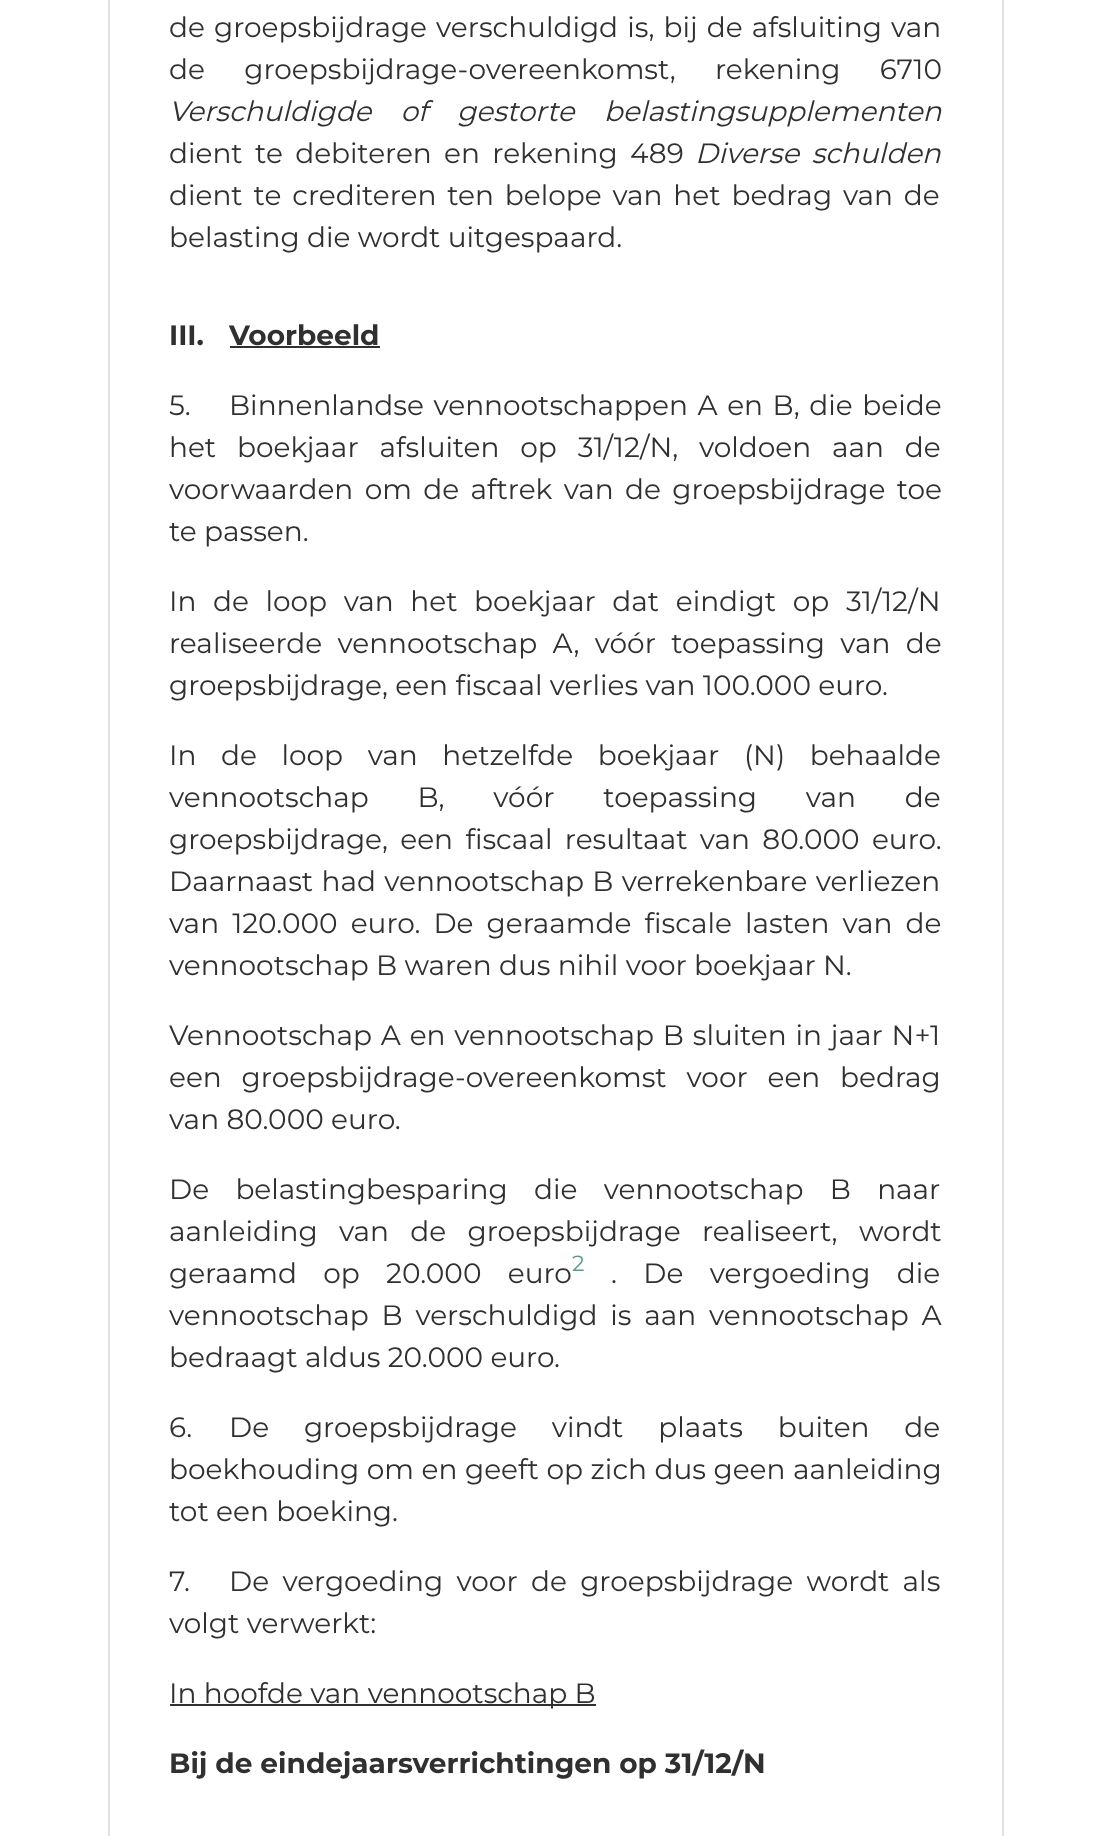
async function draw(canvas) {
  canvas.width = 1110
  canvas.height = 1836
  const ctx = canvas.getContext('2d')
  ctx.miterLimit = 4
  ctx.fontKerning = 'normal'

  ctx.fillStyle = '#fff'
  ctx.fillRect(0, 0, 1110, 1836)
  ctx.strokeStyle = '#e1e1e1'
  ctx.lineWidth = 2
  ctx.strokeRect(109, -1, 894, 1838)
  ctx.wordSpacing = '1.75px'
  ctx.font = '28px Montserrat'
  ctx.fillStyle = '#303031'
  ctx.fillText('de groepsbijdrage verschuldigd is, bij de afsluiting van', 169, 37)
  ctx.wordSpacing = '32px'
  ctx.fillText('de groepsbijdrage-overeenkomst, rekening 6710', 169, 79)
  ctx.wordSpacing = '22px'
  ctx.font = 'italic 28px Montserrat'
  ctx.fillText('Verschuldigde of gestorte belastingsupplementen', 169, 121)
  ctx.wordSpacing = '5px'
  ctx.font = '28px Montserrat'
  ctx.fillText('dient te debiteren en rekening 489', 169, 163)
  ctx.font = 'italic 28px Montserrat'
  ctx.fillText('Diverse schulden', 695, 163)
  ctx.wordSpacing = '3.5px'
  ctx.font = '28px Montserrat'
  ctx.fillText('dient te crediteren ten belope van het bedrag van de', 169, 205)
  ctx.wordSpacing = '0px'
  ctx.fillText('belasting die wordt uitgespaard.', 169, 247)
  ctx.font = 'bold 28px Montserrat'
  ctx.fillText('III.', 169, 345)
  ctx.fillText('Voorbeeld', 229, 345)
  ctx.fillRect(230, 346, 150, 2)
  ctx.font = '28px Montserrat'
  ctx.fillText('5.', 169, 415)
  ctx.wordSpacing = '2.25px'
  ctx.fillText('Binnenlandse vennootschappen A en B, die beide', 229, 415)
  ctx.wordSpacing = '13.5px'
  ctx.fillText('het boekjaar afsluiten op 31/12/N, voldoen aan de', 169, 457)
  ctx.wordSpacing = '4px'
  ctx.fillText('voorwaarden om de aftrek van de groepsbijdrage toe', 169, 499)
  ctx.wordSpacing = '0px'
  ctx.fillText('te passen.', 169, 541)
  ctx.wordSpacing = '9.25px'
  ctx.fillText('In de loop van het boekjaar dat eindigt op 31/12/N', 169, 611)
  ctx.wordSpacing = '8px'
  ctx.fillText('realiseerde vennootschap A, vóór toepassing van de', 169, 653)
  ctx.wordSpacing = '0px'
  ctx.fillText('groepsbijdrage, een fiscaal verlies van 100.000 euro.', 169, 695)
  ctx.wordSpacing = '17.25px'
  ctx.fillText('In de loop van hetzelfde boekjaar (N) behaalde', 169, 765)
  ctx.wordSpacing = '41.5px'
  ctx.fillText('vennootschap B, vóór toepassing van de', 169, 807)
  ctx.wordSpacing = '5px'
  ctx.fillText('groepsbijdrage, een fiscaal resultaat van 80.000 euro.', 169, 849)
  ctx.wordSpacing = '1px'
  ctx.fillText('Daarnaast had vennootschap B verrekenbare verliezen', 169, 891)
  ctx.wordSpacing = '5.75px'
  ctx.fillText('van 120.000 euro. De geraamde fiscale lasten van de', 169, 933)
  ctx.wordSpacing = '0px'
  ctx.fillText('vennootschap B waren dus nihil voor boekjaar N.', 169, 975)
  ctx.wordSpacing = '1.5px'
  ctx.fillText('Vennootschap A en vennootschap B sluiten in jaar N+1', 169, 1045)
  ctx.wordSpacing = '12.5px'
  ctx.fillText('een groepsbijdrage-overeenkomst voor een bedrag', 169, 1087)
  ctx.wordSpacing = '0px'
  ctx.fillText('van 80.000 euro.', 169, 1129)
  ctx.wordSpacing = '19px'
  ctx.fillText('De belastingbesparing die vennootschap B naar', 169, 1199)
  ctx.wordSpacing = '14px'
  ctx.fillText('aanleiding van de groepsbijdrage realiseert, wordt', 169, 1241)
  ctx.wordSpacing = '19px'
  ctx.fillText('geraamd op 20.000 euro', 169, 1283)
  ctx.wordSpacing = '0px'
  ctx.font = '22px Montserrat'
  ctx.fillStyle = '#5c9c80'
  ctx.fillText('2', 572, 1271)
  ctx.wordSpacing = '19px'
  ctx.font = '28px Montserrat'
  ctx.fillStyle = '#303031'
  ctx.fillText('. De vergoeding die', 611, 1283)
  ctx.wordSpacing = '5.5px'
  ctx.fillText('vennootschap B verschuldigd is aan vennootschap A', 169, 1325)
  ctx.wordSpacing = '0px'
  ctx.fillText('bedraagt aldus 20.000 euro.', 169, 1367)
  ctx.fillText('6.', 169, 1437)
  ctx.wordSpacing = '27.5px'
  ctx.fillText('De groepsbijdrage vindt plaats buiten de', 229, 1437)
  ctx.wordSpacing = '0.25px'
  ctx.fillText('boekhouding om en geeft op zich dus geen aanleiding', 169, 1479)
  ctx.wordSpacing = '0px'
  ctx.fillText('tot een boeking.', 169, 1521)
  ctx.fillText('7', 169, 1591)
  ctx.fillText('.', 184, 1591)
  ctx.wordSpacing = '6px'
  ctx.fillText('De vergoeding voor de groepsbijdrage wordt als', 229, 1591)
  ctx.wordSpacing = '0px'
  ctx.fillText('volgt verwerkt:', 169, 1633)
  ctx.fillRect(170, 1704, 426, 2)
  ctx.fillText('In hoofde van vennootschap B', 169, 1703)
  ctx.font = 'bold 28px Montserrat'
  ctx.fillText('Bij de eindejaarsverrichtingen op 31/12/N', 169, 1773)
}

draw(document.querySelector('canvas'))
